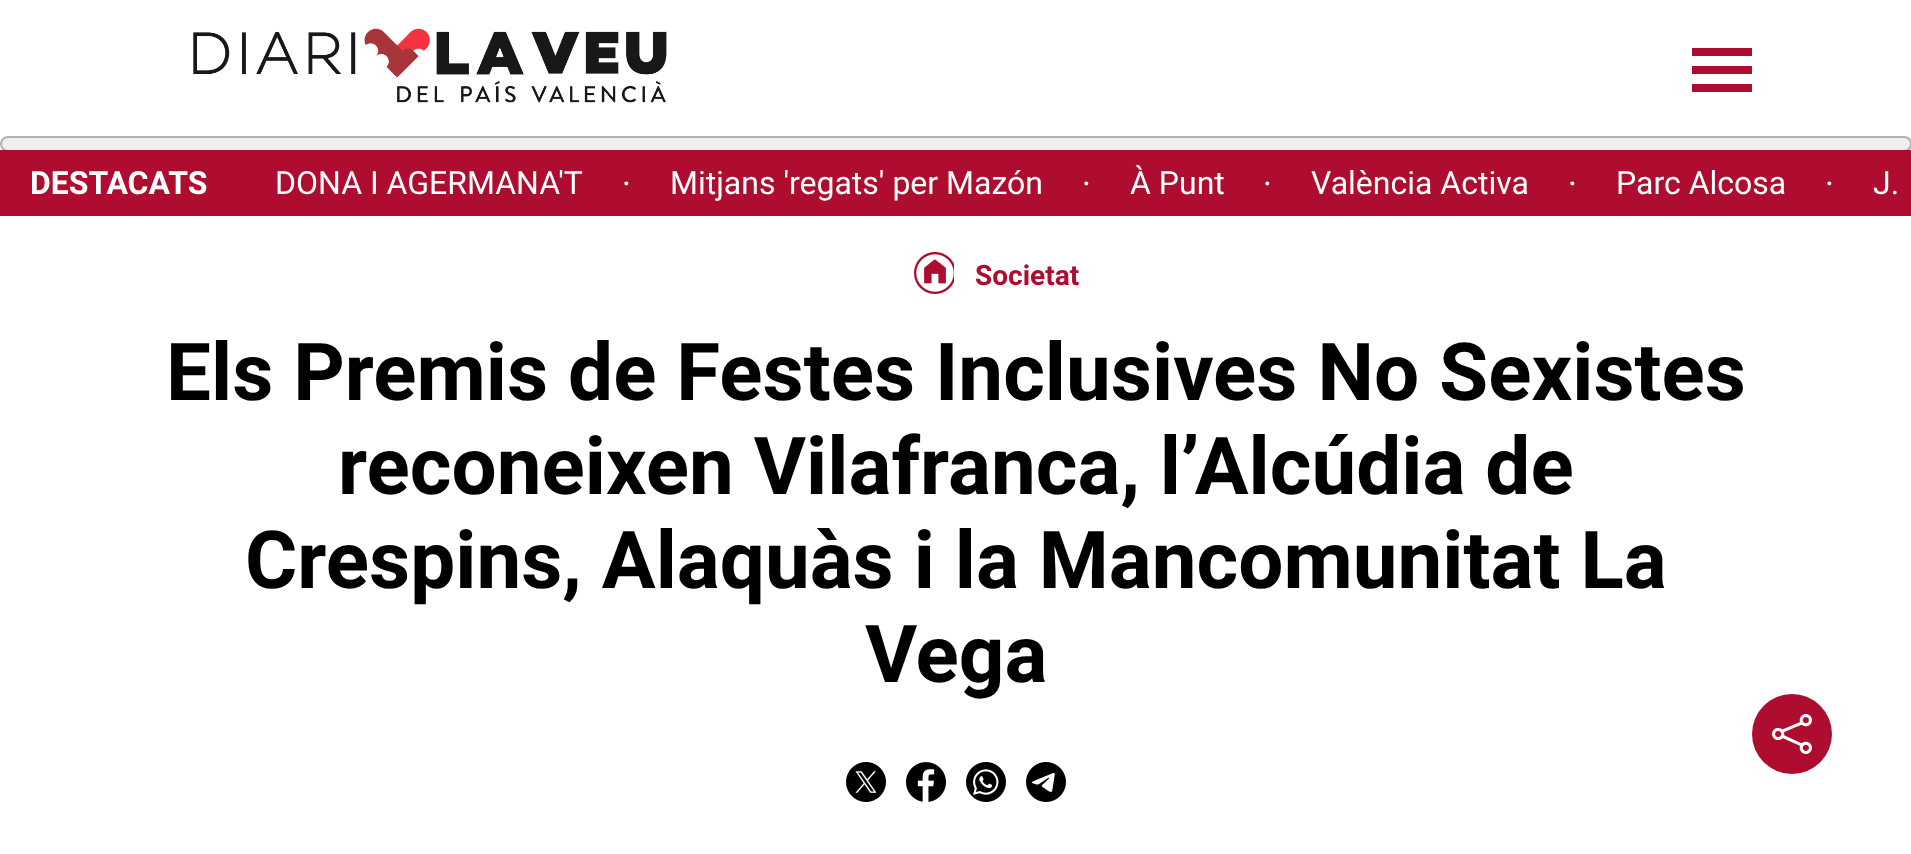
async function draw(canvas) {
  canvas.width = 1911
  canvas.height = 854
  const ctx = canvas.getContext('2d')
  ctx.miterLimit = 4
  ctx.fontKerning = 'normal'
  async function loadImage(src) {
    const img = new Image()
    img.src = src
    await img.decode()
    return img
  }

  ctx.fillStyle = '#fff'
  ctx.fillRect(0, 0, 1911, 854)
  ctx.drawImage(await loadImage('image0.png'), 193, 28, 474, 75)
  ctx.fillStyle = '#ae0d2f'
  ctx.fillRect(1692, 66, 60, 8)
  ctx.fillRect(1692, 48, 60, 8)
  ctx.fillRect(1692, 84, 60, 8)
  ctx.fillStyle = '#efefef'
  ctx.beginPath()
  ctx.roundRect(1, 137, 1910, 14, 7)
  ctx.fill()
  ctx.strokeStyle = '#b2b2b2'
  ctx.lineWidth = 2
  ctx.stroke()
  ctx.fillStyle = '#ae0d2f'
  ctx.fillRect(0, 150, 1911, 66)
  ctx.font = 'bold 32px Roboto'
  ctx.fillStyle = '#fff'
  ctx.fillText('DESTACATS', 30, 194)
  ctx.font = '32px Roboto'
  ctx.fillText('DONA I AGERMANA\'T', 275, 194)
  ctx.font = '32px Liberation Serif'
  ctx.fillText('·', 621, 194)
  ctx.font = '32px Roboto'
  ctx.fillText('Mitjans \'regats\' per Mazón', 670, 194)
  ctx.font = '32px Liberation Serif'
  ctx.fillText('·', 1081, 194)
  ctx.font = '32px Roboto'
  ctx.fillText('À Punt', 1130, 194)
  ctx.font = '32px Liberation Serif'
  ctx.fillText('·', 1262, 194)
  ctx.font = '32px Roboto'
  ctx.fillText('València Activa', 1311, 194)
  ctx.font = '32px Liberation Serif'
  ctx.fillText('·', 1567, 194)
  ctx.font = '32px Roboto'
  ctx.fillText('Parc Alcosa', 1616, 194)
  ctx.font = '32px Liberation Serif'
  ctx.fillText('·', 1824, 194)
  ctx.font = '32px Roboto'
  ctx.fillText('J.', 1873, 194)
  ctx.drawImage(await loadImage('image1.png'), 914, 252, 40, 42)
  ctx.font = 'bold 28px Roboto'
  ctx.fillStyle = '#ae0d2f'
  ctx.fillText('Societat', 975, 285)
  ctx.font = 'bold 80px Roboto'
  ctx.fillStyle = '#000'
  ctx.fillText('Els Premis de Festes Inclusives No Sexistes', 166, 400)
  ctx.fillText('reconeixen Vilafranca, l’Alcúdia de', 338, 494)
  ctx.fillText('Crespins, Alaquàs i la Mancomunitat La', 245, 588)
  ctx.fillText('Vega', 865, 682)
  ctx.drawImage(await loadImage('image2.png'), 846, 762, 40, 40)
  ctx.drawImage(await loadImage('image3.png'), 906, 762, 40, 40)
  ctx.drawImage(await loadImage('image4.png'), 966, 762, 40, 40)
  ctx.drawImage(await loadImage('image5.png'), 1026, 762, 40, 40)
  ctx.fillStyle = '#ae0d2f'
  ctx.beginPath()
  ctx.arc(1792, 734, 40, 0, 2 * Math.PI)
  ctx.fill()
  ctx.drawImage(await loadImage('image6.png'), 1772, 714, 40, 40)
}

draw(document.querySelector('canvas'))
